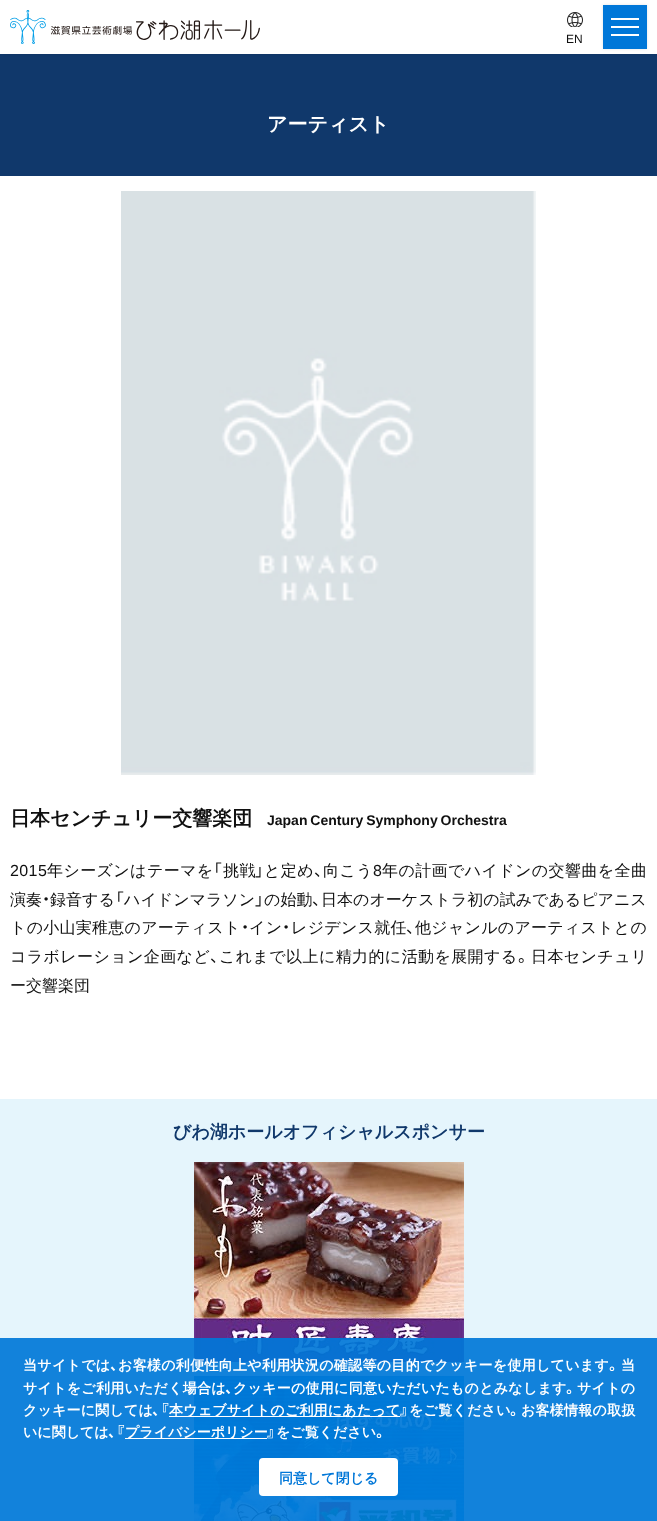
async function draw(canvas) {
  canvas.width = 657
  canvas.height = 1521
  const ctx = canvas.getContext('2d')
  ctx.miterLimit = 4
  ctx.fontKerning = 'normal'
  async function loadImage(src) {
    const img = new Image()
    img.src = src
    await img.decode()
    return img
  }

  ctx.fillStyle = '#fff'
  ctx.fillRect(0, 0, 657, 1521)
  ctx.fillStyle = '#10386b'
  ctx.fillRect(0, 54, 657, 122)
  ctx.fillStyle = '#00000080'
  ctx.filter = 'blur(2.5px)'
  ctx.beginPath()
  ctx.rect(3, 3, 651, 48)
  ctx.fill()
  ctx.filter = 'none'
  ctx.fillStyle = '#fff'
  ctx.fillRect(0, 0, 657, 54)
  ctx.drawImage(await loadImage('image0.png'), 10, 10, 250, 34)
  ctx.drawImage(await loadImage('image1.png'), 567, 12, 16, 15)
  ctx.font = '12px Liberation Sans'
  ctx.fillStyle = '#101010'
  ctx.fillText('EN', 566, 43)
  ctx.fillStyle = '#0000001a'
  ctx.filter = 'blur(1.5px)'
  ctx.beginPath()
  ctx.rect(603, 5, 44, 44)
  ctx.fill()
  ctx.filter = 'none'
  ctx.fillStyle = '#0077d8'
  ctx.fillRect(603, 5, 44, 44)
  ctx.fillStyle = '#fff'
  ctx.fillRect(611, 26, 28, 2)
  ctx.fillRect(611, 18, 28, 2)
  ctx.fillRect(611, 34, 28, 2)
  ctx.font = 'bold 20px WenQuanYi Zen Hei'
  ctx.fillText('アーティスト', 267, 131)
  ctx.drawImage(await loadImage('image2.png'), 121, 191, 415, 584)
  ctx.fillStyle = '#101010'
  ctx.fillText('日本センチュリー交響楽団', 10, 825)
  ctx.wordSpacing = '-1px'
  ctx.font = 'bold 14px Liberation Sans'
  ctx.fillText('Japan Century Symphony Orchestra', 267, 825)
  ctx.letterSpacing = '0.4px'
  ctx.wordSpacing = '0px'
  ctx.font = '16px Liberation Sans'
  ctx.fillText('2015', 10, 876)
  ctx.font = '500 16px WenQuanYi Zen Hei'
  ctx.fillText('年シーズンはテーマを', 47, 876)
  ctx.font = '16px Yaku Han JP'
  ctx.fillText('「', 213, 876)
  ctx.font = '500 16px WenQuanYi Zen Hei'
  ctx.fillText('挑戦', 223, 876)
  ctx.font = '16px Yaku Han JP'
  ctx.fillText('」', 255, 876)
  ctx.font = '500 16px WenQuanYi Zen Hei'
  ctx.fillText('と定め', 264, 876)
  ctx.font = '16px Yaku Han JP'
  ctx.fillText('、', 314, 876)
  ctx.font = '500 16px WenQuanYi Zen Hei'
  ctx.fillText('向こう', 323, 876)
  ctx.font = '16px Liberation Sans'
  ctx.fillText('8', 373, 876)
  ctx.font = '500 16px WenQuanYi Zen Hei'
  ctx.fillText('年の計画でハイドンの交響曲を全曲', 382, 876)
  ctx.letterSpacing = '0px'
  ctx.fillText('演奏', 10, 905)
  ctx.font = '16px Yaku Han JP'
  ctx.fillText('・', 42, 905)
  ctx.font = '500 16px WenQuanYi Zen Hei'
  ctx.fillText('録音する', 50, 905)
  ctx.font = '16px Yaku Han JP'
  ctx.fillText('「', 115, 905)
  ctx.font = '500 16px WenQuanYi Zen Hei'
  ctx.fillText('ハイドンマラソン', 124, 905)
  ctx.font = '16px Yaku Han JP'
  ctx.fillText('」', 255, 905)
  ctx.font = '500 16px WenQuanYi Zen Hei'
  ctx.fillText('の始動', 264, 905)
  ctx.fillText('日本のオーケストラ初の試みであるピアニス', 321, 905)
  ctx.font = '16px Yaku Han JP'
  ctx.fillText('、', 312, 905)
  ctx.letterSpacing = '0.25px'
  ctx.font = '500 16px WenQuanYi Zen Hei'
  ctx.fillText('トの小山実稚恵のアーティスト', 10, 933)
  ctx.font = '16px Yaku Han JP'
  ctx.fillText('・', 241, 933)
  ctx.font = '500 16px WenQuanYi Zen Hei'
  ctx.fillText('イン', 249, 933)
  ctx.font = '16px Yaku Han JP'
  ctx.fillText('・', 282, 933)
  ctx.font = '500 16px WenQuanYi Zen Hei'
  ctx.fillText('レジデンス就任', 291, 933)
  ctx.fillText('他ジャンルのアーティストとの', 415, 933)
  ctx.font = '16px Yaku Han JP'
  ctx.fillText('、', 406, 933)
  ctx.letterSpacing = '0.4px'
  ctx.font = '500 16px WenQuanYi Zen Hei'
  ctx.fillText('コラボレーション企画など', 10, 962)
  ctx.font = '16px Yaku Han JP'
  ctx.fillText('、', 210, 962)
  ctx.font = '500 16px WenQuanYi Zen Hei'
  ctx.fillText('これまで以上に精力的に活動を展開する', 219, 962)
  ctx.font = '16px Yaku Han JP'
  ctx.fillText('。', 518, 962)
  ctx.font = '500 16px WenQuanYi Zen Hei'
  ctx.fillText('日本センチュリ', 531, 962)
  ctx.letterSpacing = '0px'
  ctx.fillText('ー交響楽団', 10, 991)
  ctx.fillStyle = '#e5f5fc'
  ctx.fillRect(0, 1099, 657, 422)
  ctx.font = 'bold 18px WenQuanYi Zen Hei'
  ctx.fillStyle = '#10386b'
  ctx.fillText('びわ湖ホールオフィシャルスポンサー', 173, 1138)
  ctx.drawImage(await loadImage('image3.png'), 194, 1162, 270, 200)
  ctx.drawImage(await loadImage('image4.png'), 194, 1376, 270, 145)
  ctx.fillStyle = '#0077d8eb'
  ctx.fillRect(0, 1338, 657, 183)
  ctx.letterSpacing = '0.3px'
  ctx.font = 'bold 14px WenQuanYi Zen Hei'
  ctx.fillStyle = '#fff'
  ctx.fillText('当サイトでは', 23, 1370)
  ctx.font = 'bold 14px Yaku Han JP'
  ctx.fillText('、', 110, 1370)
  ctx.font = 'bold 14px WenQuanYi Zen Hei'
  ctx.fillText('お客様の利便性向上や利用状況の確認等の目的でクッキーを使用しています', 118, 1370)
  ctx.font = 'bold 14px Yaku Han JP'
  ctx.fillText('。', 609, 1370)
  ctx.font = 'bold 14px WenQuanYi Zen Hei'
  ctx.fillText('当', 621, 1370)
  ctx.letterSpacing = '0.25px'
  ctx.fillText('サイトをご利用いただく場合は', 23, 1393)
  ctx.font = 'bold 14px Yaku Han JP'
  ctx.fillText('、', 225, 1393)
  ctx.font = 'bold 14px WenQuanYi Zen Hei'
  ctx.fillText('クッキーの使用に同意いただいたものとみなします', 233, 1393)
  ctx.font = 'bold 14px Yaku Han JP'
  ctx.fillText('。', 566, 1393)
  ctx.font = 'bold 14px WenQuanYi Zen Hei'
  ctx.fillText('サイトの', 577, 1393)
  ctx.letterSpacing = '0.2px'
  ctx.fillText('クッキーに関しては', 23, 1415)
  ctx.font = 'bold 14px Yaku Han JP'
  ctx.fillText('、『', 152, 1415)
  ctx.fillRect(169, 1416, 231, 1)
  ctx.font = 'bold 14px WenQuanYi Zen Hei'
  ctx.fillText('本ウェブサイトのご利用にあたって', 169, 1415)
  ctx.letterSpacing = '0.25px'
  ctx.font = 'bold 14px Yaku Han JP'
  ctx.fillText('』', 400, 1415)
  ctx.font = 'bold 14px WenQuanYi Zen Hei'
  ctx.fillText('をご覧ください', 409, 1415)
  ctx.font = 'bold 14px Yaku Han JP'
  ctx.fillText('。', 510, 1415)
  ctx.font = 'bold 14px WenQuanYi Zen Hei'
  ctx.fillText('お客様情報の取扱', 521, 1415)
  ctx.letterSpacing = '0px'
  ctx.fillText('いに関しては', 23, 1437)
  ctx.font = 'bold 14px Yaku Han JP'
  ctx.fillText('、『', 108, 1437)
  ctx.fillRect(125, 1438, 142, 1)
  ctx.font = 'bold 14px WenQuanYi Zen Hei'
  ctx.fillText('プライバシーポリシー', 125, 1437)
  ctx.font = 'bold 14px Yaku Han JP'
  ctx.fillText('』', 267, 1437)
  ctx.font = 'bold 14px WenQuanYi Zen Hei'
  ctx.fillText('をご覧ください', 276, 1437)
  ctx.font = 'bold 14px Yaku Han JP'
  ctx.fillText('。', 376, 1437)
  ctx.beginPath()
  ctx.roundRect(259, 1458, 139, 38, 4)
  ctx.fill()
  ctx.font = 'bold 14px WenQuanYi Zen Hei'
  ctx.fillStyle = '#0077d8'
  ctx.fillText('同意して閉じる', 279, 1483)
}

draw(document.querySelector('canvas'))
